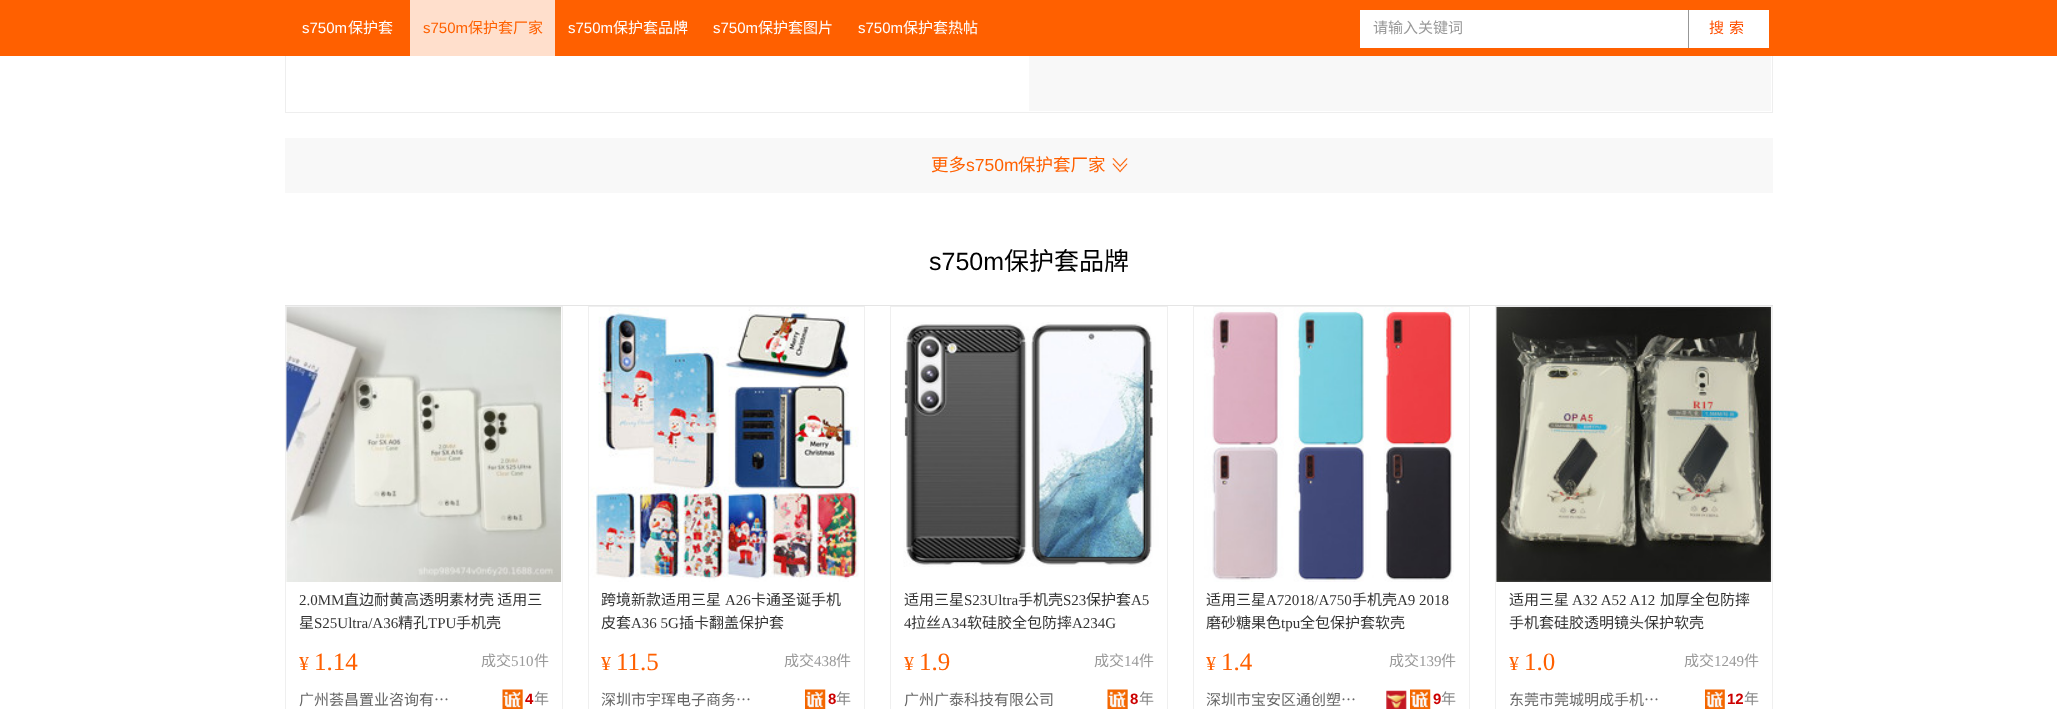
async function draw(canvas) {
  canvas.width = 2057
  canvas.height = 709
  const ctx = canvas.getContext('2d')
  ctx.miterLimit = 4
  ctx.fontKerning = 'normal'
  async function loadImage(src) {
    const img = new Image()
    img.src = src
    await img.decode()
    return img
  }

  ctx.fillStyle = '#fff'
  ctx.fillRect(0, 0, 2057, 709)
  ctx.strokeStyle = '#eee'
  ctx.strokeRect(285.5, -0.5, 1487, 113)
  ctx.fillStyle = '#ff6000'
  ctx.fillRect(0, 0, 2057, 56)
  ctx.font = '15px Liberation Sans'
  ctx.fillStyle = '#fff'
  ctx.fillText('s750m', 302, 33)
  ctx.font = '15px Noto Sans CJK SC'
  ctx.fillText('保护套', 348, 33)
  ctx.fillStyle = '#ffdfcc'
  ctx.fillRect(410, 0, 145, 56)
  ctx.font = '15px Liberation Sans'
  ctx.fillStyle = '#ff6000'
  ctx.fillText('s750m', 423, 33)
  ctx.font = '15px Noto Sans CJK SC'
  ctx.fillText('保护套', 468, 33)
  ctx.fillText('厂家', 513, 33)
  ctx.font = '15px Liberation Sans'
  ctx.fillStyle = '#fff'
  ctx.fillText('s750m', 568, 33)
  ctx.font = '15px Noto Sans CJK SC'
  ctx.fillText('保护套', 613, 33)
  ctx.fillText('品牌', 658, 33)
  ctx.font = '15px Liberation Sans'
  ctx.fillText('s750m', 713, 33)
  ctx.font = '15px Noto Sans CJK SC'
  ctx.fillText('保护套', 758, 33)
  ctx.fillText('图片', 803, 33)
  ctx.font = '15px Liberation Sans'
  ctx.fillText('s750m', 858, 33)
  ctx.font = '15px Noto Sans CJK SC'
  ctx.fillText('保护套', 903, 33)
  ctx.fillText('热帖', 948, 33)
  ctx.fillRect(1360, 10, 328, 38)
  ctx.fillStyle = '#999'
  ctx.fillText('请输入关键词', 1373, 33)
  ctx.fillStyle = '#fff'
  ctx.fillRect(1689, 10, 80, 38)
  ctx.fillStyle = '#979797'
  ctx.fillRect(1688, 10, 1, 38)
  ctx.letterSpacing = '5px'
  ctx.fillStyle = '#ff4f00'
  ctx.fillText('搜索', 1709, 33)
  ctx.fillStyle = '#f8f8f8'
  ctx.fillRect(1029, 56, 742, 55)
  ctx.fillRect(285, 138, 1488, 55)
  ctx.letterSpacing = '0px'
  ctx.font = '17.5px Noto Sans CJK SC'
  ctx.fillStyle = '#ff6000'
  ctx.fillText('更多', 931, 171)
  ctx.font = '17.5px Liberation Sans'
  ctx.fillText('s750m', 966, 171)
  ctx.font = '17.5px Noto Sans CJK SC'
  ctx.fillText('保护套厂家', 1018, 171)
  ctx.drawImage(await loadImage('image0.png'), 1112, 158, 16, 15)
  ctx.fillStyle = '#e5e5e5'
  ctx.fillRect(285, 305, 1488, 1)
  ctx.font = '25px Liberation Sans'
  ctx.fillStyle = '#000'
  ctx.fillText('s750m', 929, 270)
  ctx.font = '25px Noto Sans CJK SC'
  ctx.fillText('保护套品牌', 1004, 270)
  ctx.strokeStyle = '#efefef'
  ctx.strokeRect(285.5, 306.5, 277, 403)
  ctx.drawImage(await loadImage('image1.png'), 286, 307, 276, 275)
  ctx.font = '15px Liberation Serif'
  ctx.fillStyle = '#333'
  ctx.fillText('2.0MM', 299, 605)
  ctx.font = '15px Noto Sans CJK SC'
  ctx.fillText('直边耐黄高透明素材壳 适用三', 344, 605)
  ctx.fillText('星', 299, 628)
  ctx.font = '15px Liberation Serif'
  ctx.fillText('S25Ultra/A36', 314, 628)
  ctx.font = '15px Noto Sans CJK SC'
  ctx.fillText('精孔', 398, 628)
  ctx.font = '15px Liberation Serif'
  ctx.fillText('TPU', 428, 628)
  ctx.font = '15px Noto Sans CJK SC'
  ctx.fillText('手机壳', 456, 628)
  ctx.font = '20px Liberation Serif'
  ctx.fillStyle = '#ff6000'
  ctx.fillText('¥', 299, 670)
  ctx.font = '25px Liberation Serif'
  ctx.fillText('1.14', 314, 670)
  ctx.font = '15px Noto Sans CJK SC'
  ctx.fillStyle = '#999'
  ctx.fillText('成交', 481, 666)
  ctx.font = '15px Liberation Serif'
  ctx.fillText('510', 511, 666)
  ctx.font = '15px Noto Sans CJK SC'
  ctx.fillText('件', 534, 666)
  ctx.fillStyle = '#666'
  ctx.fillText('广州荟昌置业咨询有…', 299, 705)
  ctx.drawImage(await loadImage('image2.png'), 502, 689, 21, 20)
  ctx.font = 'bold 15px Liberation Sans'
  ctx.fillStyle = '#c00'
  ctx.fillText('4', 525, 704)
  ctx.font = '15px Noto Sans CJK SC'
  ctx.fillStyle = '#888'
  ctx.fillText('年', 534, 704)
  ctx.strokeRect(588.5, 306.5, 276, 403)
  ctx.drawImage(await loadImage('image3.png'), 589, 307, 270, 275)
  ctx.fillStyle = '#333'
  ctx.fillText('跨境新款适用三星', 601, 605)
  ctx.font = '15px Liberation Serif'
  ctx.fillText('A26', 725, 605)
  ctx.font = '15px Noto Sans CJK SC'
  ctx.fillText('卡通圣诞手机', 751, 605)
  ctx.fillText('皮套', 601, 628)
  ctx.font = '15px Liberation Serif'
  ctx.fillText('A36 5G', 631, 628)
  ctx.font = '15px Noto Sans CJK SC'
  ctx.fillText('插卡翻盖保护套', 679, 628)
  ctx.font = '20px Liberation Serif'
  ctx.fillStyle = '#ff6000'
  ctx.fillText('¥', 601, 670)
  ctx.font = '25px Liberation Serif'
  ctx.fillText('11.5', 616, 670)
  ctx.font = '15px Noto Sans CJK SC'
  ctx.fillStyle = '#999'
  ctx.fillText('成交', 784, 666)
  ctx.font = '15px Liberation Serif'
  ctx.fillText('438', 814, 666)
  ctx.font = '15px Noto Sans CJK SC'
  ctx.fillText('件', 836, 666)
  ctx.fillStyle = '#666'
  ctx.fillText('深圳市宇珲电子商务…', 601, 705)
  ctx.drawImage(await loadImage('image4.png'), 805, 689, 21, 20)
  ctx.font = 'bold 15px Liberation Sans'
  ctx.fillStyle = '#c00'
  ctx.fillText('8', 828, 704)
  ctx.font = '15px Noto Sans CJK SC'
  ctx.fillStyle = '#888'
  ctx.fillText('年', 836, 704)
  ctx.strokeRect(890.5, 306.5, 277, 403)
  ctx.drawImage(await loadImage('image5.png'), 903, 322, 257, 245)
  ctx.fillStyle = '#333'
  ctx.fillText('适用三星', 904, 605)
  ctx.font = '15px Liberation Serif'
  ctx.fillText('S23Ultra', 964, 605)
  ctx.font = '15px Noto Sans CJK SC'
  ctx.fillText('手机壳', 1018, 605)
  ctx.font = '15px Liberation Serif'
  ctx.fillText('S23', 1063, 605)
  ctx.font = '15px Noto Sans CJK SC'
  ctx.fillText('保护套', 1086, 605)
  ctx.font = '15px Liberation Serif'
  ctx.fillText('A5', 1131, 605)
  ctx.fillText('4', 904, 628)
  ctx.font = '15px Noto Sans CJK SC'
  ctx.fillText('拉丝', 911, 628)
  ctx.font = '15px Liberation Serif'
  ctx.fillText('A34', 941, 628)
  ctx.font = '15px Noto Sans CJK SC'
  ctx.fillText('软硅胶全包防摔', 967, 628)
  ctx.font = '15px Liberation Serif'
  ctx.fillText('A234G', 1072, 628)
  ctx.font = '20px Liberation Serif'
  ctx.fillStyle = '#ff6000'
  ctx.fillText('¥', 904, 670)
  ctx.font = '25px Liberation Serif'
  ctx.fillText('1.9', 919, 670)
  ctx.font = '15px Noto Sans CJK SC'
  ctx.fillStyle = '#999'
  ctx.fillText('成交', 1094, 666)
  ctx.font = '15px Liberation Serif'
  ctx.fillText('14', 1124, 666)
  ctx.font = '15px Noto Sans CJK SC'
  ctx.fillText('件', 1139, 666)
  ctx.fillStyle = '#666'
  ctx.fillText('广州广泰科技有限公司', 904, 705)
  ctx.drawImage(await loadImage('image2.png'), 1107, 689, 21, 20)
  ctx.font = 'bold 15px Liberation Sans'
  ctx.fillStyle = '#c00'
  ctx.fillText('8', 1130, 704)
  ctx.font = '15px Noto Sans CJK SC'
  ctx.fillStyle = '#888'
  ctx.fillText('年', 1139, 704)
  ctx.strokeRect(1193.5, 306.5, 276, 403)
  ctx.drawImage(await loadImage('image6.png'), 1204, 307, 250, 275)
  ctx.fillStyle = '#333'
  ctx.fillText('适用三星', 1206, 605)
  ctx.font = '15px Liberation Serif'
  ctx.fillText('A72018/A750', 1266, 605)
  ctx.font = '15px Noto Sans CJK SC'
  ctx.fillText('手机壳', 1352, 605)
  ctx.font = '15px Liberation Serif'
  ctx.fillText('A9 2018', 1397, 605)
  ctx.font = '15px Noto Sans CJK SC'
  ctx.fillText('磨砂糖果色', 1206, 628)
  ctx.font = '15px Liberation Serif'
  ctx.fillText('tpu', 1281, 628)
  ctx.font = '15px Noto Sans CJK SC'
  ctx.fillText('全包保护套软壳', 1300, 628)
  ctx.font = '20px Liberation Serif'
  ctx.fillStyle = '#ff6000'
  ctx.fillText('¥', 1206, 670)
  ctx.font = '25px Liberation Serif'
  ctx.fillText('1.4', 1221, 670)
  ctx.font = '15px Noto Sans CJK SC'
  ctx.fillStyle = '#999'
  ctx.fillText('成交', 1389, 666)
  ctx.font = '15px Liberation Serif'
  ctx.fillText('139', 1419, 666)
  ctx.font = '15px Noto Sans CJK SC'
  ctx.fillText('件', 1441, 666)
  ctx.fillStyle = '#666'
  ctx.fillText('深圳市宝安区通创塑…', 1206, 705)
  ctx.drawImage(await loadImage('image7.png'), 1386, 690, 21, 19)
  ctx.drawImage(await loadImage('image4.png'), 1410, 689, 21, 20)
  ctx.font = 'bold 15px Liberation Sans'
  ctx.fillStyle = '#c00'
  ctx.fillText('9', 1433, 704)
  ctx.font = '15px Noto Sans CJK SC'
  ctx.fillStyle = '#888'
  ctx.fillText('年', 1441, 704)
  ctx.strokeRect(1495.5, 306.5, 277, 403)
  ctx.drawImage(await loadImage('image8.png'), 1496, 307, 276, 275)
  ctx.fillStyle = '#333'
  ctx.fillText('适用三星', 1509, 605)
  ctx.font = '15px Liberation Serif'
  ctx.fillText('A32 A52 A12', 1572, 605)
  ctx.font = '15px Noto Sans CJK SC'
  ctx.fillText('加厚全包防摔', 1660, 605)
  ctx.fillText('手机套硅胶透明镜头保护软壳', 1509, 628)
  ctx.font = '20px Liberation Serif'
  ctx.fillStyle = '#ff6000'
  ctx.fillText('¥', 1509, 670)
  ctx.font = '25px Liberation Serif'
  ctx.fillText('1.0', 1524, 670)
  ctx.font = '15px Noto Sans CJK SC'
  ctx.fillStyle = '#999'
  ctx.fillText('成交', 1684, 666)
  ctx.font = '15px Liberation Serif'
  ctx.fillText('1249', 1714, 666)
  ctx.font = '15px Noto Sans CJK SC'
  ctx.fillText('件', 1744, 666)
  ctx.fillStyle = '#666'
  ctx.fillText('东莞市莞城明成手机…', 1509, 705)
  ctx.drawImage(await loadImage('image9.png'), 1705, 689, 20, 20)
  ctx.font = 'bold 15px Liberation Sans'
  ctx.fillStyle = '#c00'
  ctx.fillText('12', 1727, 704)
  ctx.font = '15px Noto Sans CJK SC'
  ctx.fillStyle = '#888'
  ctx.fillText('年', 1744, 704)
}

draw(document.querySelector('canvas'))
